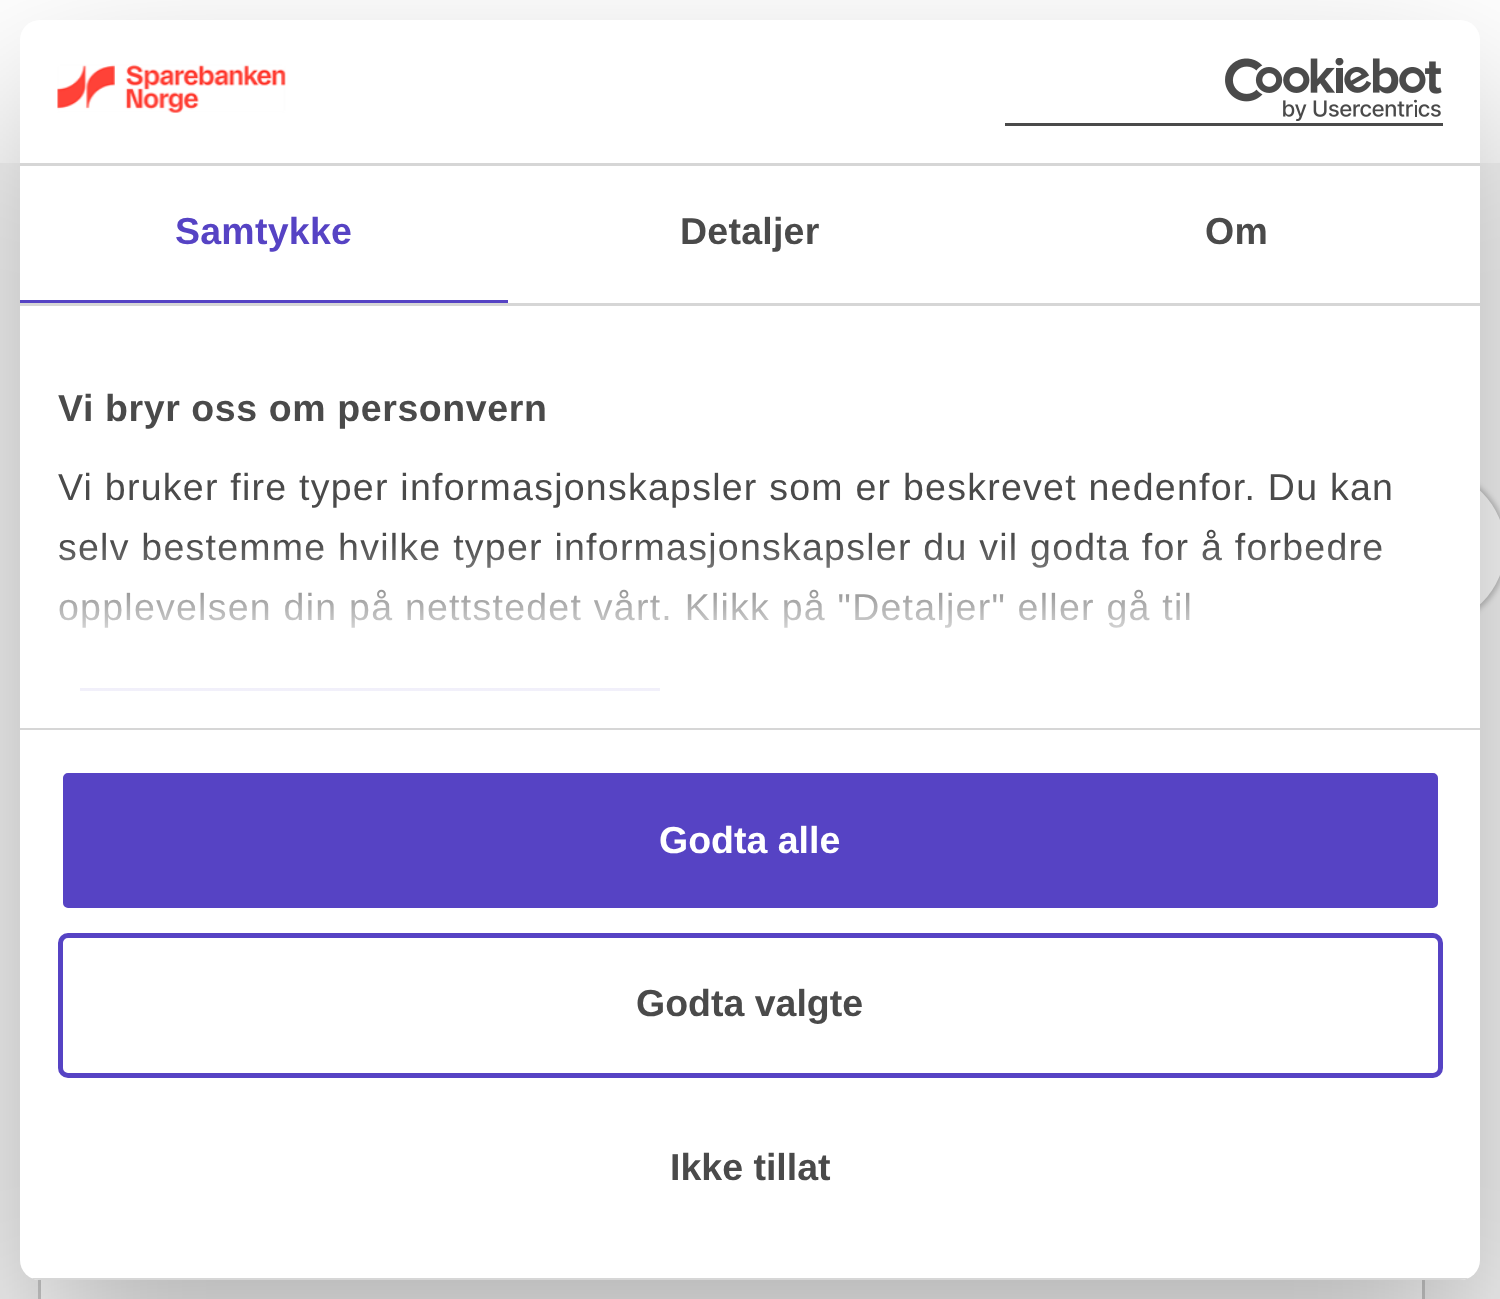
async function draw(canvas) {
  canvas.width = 1500
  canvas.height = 1299
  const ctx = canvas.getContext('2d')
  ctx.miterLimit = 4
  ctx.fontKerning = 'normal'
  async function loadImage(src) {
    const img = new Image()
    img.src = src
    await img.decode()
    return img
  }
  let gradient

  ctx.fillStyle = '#f6f6f6'
  ctx.fillRect(0, 0, 1500, 1299)
  ctx.fillStyle = '#fff'
  ctx.fillRect(0, 0, 1500, 163)
  ctx.fillStyle = '#00000033'
  ctx.filter = 'blur(2.5px)'
  ctx.beginPath()
  ctx.roundRect(1348, 468, 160, 160, 80)
  ctx.fill()
  ctx.filter = 'none'
  ctx.fillStyle = '#fefefe'
  ctx.beginPath()
  ctx.arc(1427.5, 547.5, 77.5, 0, 2 * Math.PI)
  ctx.fill()
  ctx.fillStyle = '#fff'
  ctx.fillRect(41, 1280, 1381, 19)
  ctx.strokeStyle = '#ccc'
  ctx.lineWidth = 3
  ctx.strokeRect(39.5, 1226.5, 1384, 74)
  ctx.fillStyle = '#0000004d'
  ctx.filter = 'blur(85px)'
  ctx.beginPath()
  ctx.roundRect(20, 100, 1460, 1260, 20)
  ctx.fill()
  ctx.filter = 'none'
  ctx.fillStyle = '#fff'
  ctx.beginPath()
  ctx.roundRect(20, 20, 1460, 1260, 20)
  ctx.fill()
  ctx.fillStyle = '#d6d6d6'
  ctx.fillRect(20, 163, 1460, 3)
  ctx.drawImage(await loadImage('image0.png'), 57, 64, 229, 49)
  ctx.fillStyle = '#4a4a4a'
  ctx.fillRect(1005, 123, 438, 3)
  ctx.drawImage(await loadImage('image1.png'), 1225, 58, 217, 63)
  ctx.fillStyle = '#d6d6d6'
  ctx.fillRect(20, 303, 1460, 3)
  ctx.fillStyle = '#5643c4'
  ctx.fillRect(20, 300, 488, 3)
  ctx.letterSpacing = '0.25px'
  ctx.font = 'bold 37.5px Liberation Sans'
  ctx.fillText('Samtykke', 175, 244)
  ctx.fillStyle = '#4a4a4a'
  ctx.fillText('Detaljer', 680, 244)
  ctx.fillText('Om', 1205, 244)
  ctx.fillStyle = '#d6d6d6'
  ctx.fillRect(20, 728, 1460, 2)
  ctx.letterSpacing = '0.6px'
  ctx.fillStyle = '#4a4a4a'
  ctx.fillText('Vi bryr oss om personvern', 58, 421)
  ctx.letterSpacing = '1.25px'
  ctx.font = '37.5px Liberation Sans'
  ctx.fillText('Vi bruker fire typer informasjonskapsler som er beskrevet nedenfor. Du kan', 58, 500)
  ctx.fillText('selv bestemme hvilke typer informasjonskapsler du vil godta for å forbedre', 58, 560)
  ctx.fillText('opplevelsen din på nettstedet vårt. Klikk på "Detaljer" eller gå til', 58, 620)
  ctx.fillStyle = '#5643c4'
  ctx.fillRect(80, 688, 580, 3)
  gradient = ctx.createLinearGradient(734, 728, 734, 540)
  gradient.addColorStop(0, '#fff')
  gradient.addColorStop(0.5, '#ffffffcc')
  gradient.addColorStop(1, '#ffffff00')
  ctx.fillStyle = gradient
  ctx.fillRect(58, 543, 1323, 148)
  ctx.save()
  ctx.beginPath()
  ctx.roundRect(20, 20, 1460, 1260, 20)
  ctx.clip()
  ctx.fillStyle = '#d6d6d6'
  ctx.fillRect(31, 1278, 1438, 2)
  ctx.restore()
  ctx.fillStyle = '#5643c4'
  ctx.beginPath()
  ctx.roundRect(60.5, 770.5, 1380, 140, 7.5)
  ctx.fill()
  ctx.strokeStyle = '#fff'
  ctx.lineWidth = 5
  ctx.stroke()
  ctx.letterSpacing = '0px'
  ctx.font = 'bold 37.5px Liberation Sans'
  ctx.fillStyle = '#fff'
  ctx.fillText('Godta alle', 659, 853)
  ctx.beginPath()
  ctx.roundRect(60.5, 935.5, 1380, 140, 7.5)
  ctx.strokeStyle = '#5643c4'
  ctx.stroke()
  ctx.fillStyle = '#4a4a4a'
  ctx.fillText('Godta valgte', 636, 1016)
  ctx.fillText('Ikke tillat', 670, 1180)
}

draw(document.querySelector('canvas'))
